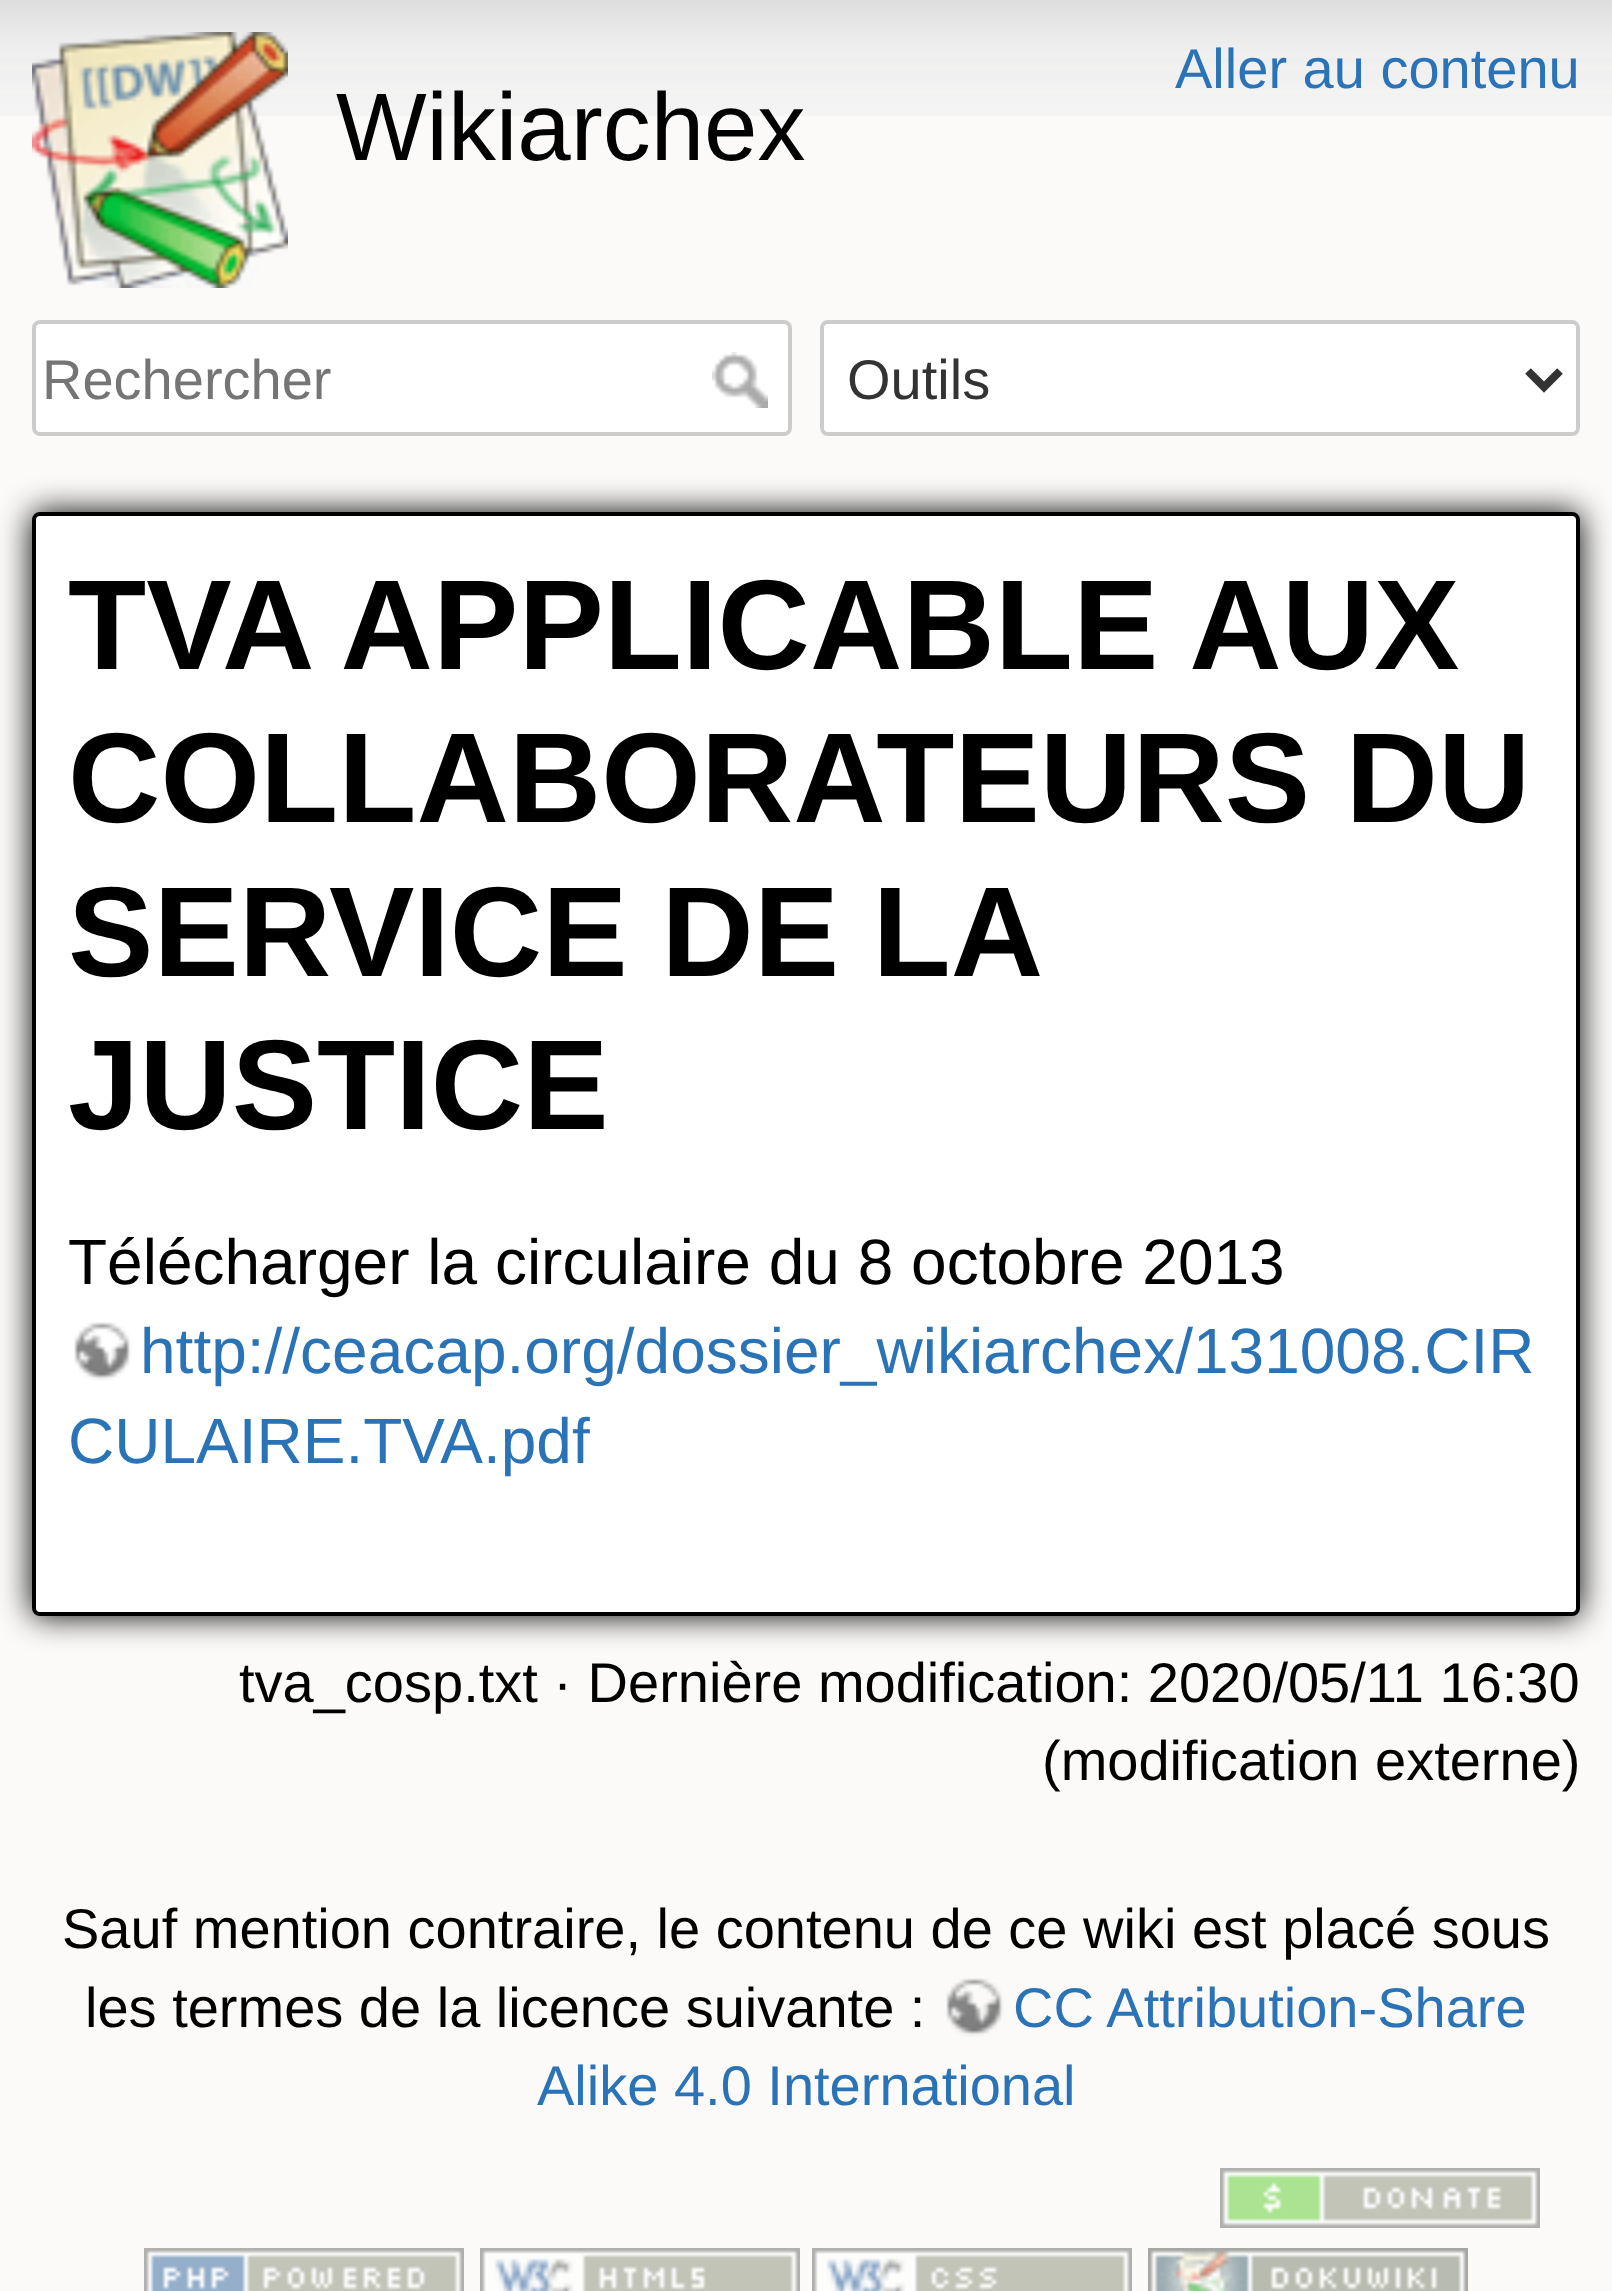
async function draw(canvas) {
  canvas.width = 1612
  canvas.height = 2291
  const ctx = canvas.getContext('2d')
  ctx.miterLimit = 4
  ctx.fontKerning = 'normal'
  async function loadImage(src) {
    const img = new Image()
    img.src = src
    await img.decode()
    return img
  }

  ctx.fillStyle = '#fbfaf9'
  ctx.fillRect(0, 0, 1612, 2291)
  ctx.drawImage(await loadImage('image0.png'), 0, 0, 1612, 116)
  ctx.font = '56px Liberation Sans'
  ctx.fillStyle = '#2b73b7'
  ctx.fillText('Aller au contenu', 1175, 88)
  ctx.drawImage(await loadImage('image1.png'), 32, 32, 256, 256)
  ctx.font = '96px Liberation Sans'
  ctx.fillStyle = '#000'
  ctx.fillText('Wikiarchex', 336, 160)
  ctx.fillStyle = '#fff'
  ctx.beginPath()
  ctx.roundRect(34, 322, 756, 112, 6)
  ctx.fill()
  ctx.strokeStyle = '#ccc'
  ctx.lineWidth = 4
  ctx.stroke()
  ctx.font = '56px Liberation Sans'
  ctx.fillStyle = '#757575'
  ctx.fillText('Rechercher', 42, 399)
  ctx.drawImage(await loadImage('image2.png'), 712, 352, 56, 56)
  ctx.fillStyle = '#fff'
  ctx.beginPath()
  ctx.roundRect(822, 322, 756, 112, 6)
  ctx.fill()
  ctx.stroke()
  ctx.beginPath()
  ctx.moveTo(1528, 371)
  ctx.lineTo(1544, 387)
  ctx.lineTo(1560, 371)
  ctx.strokeStyle = '#333'
  ctx.lineWidth = 8
  ctx.stroke()
  ctx.fillStyle = '#333'
  ctx.fillText('Outils', 847, 399)
  ctx.fillStyle = '#000'
  ctx.filter = 'blur(16px)'
  ctx.beginPath()
  ctx.roundRect(32, 512, 1548, 1104, 8)
  ctx.fill()
  ctx.filter = 'none'
  ctx.fillStyle = '#fff'
  ctx.beginPath()
  ctx.roundRect(34, 514, 1544, 1100, 6)
  ctx.fill()
  ctx.strokeStyle = '#000'
  ctx.lineWidth = 4
  ctx.stroke()
  ctx.font = 'bold 128px Liberation Sans'
  ctx.fillStyle = '#000'
  ctx.fillText('TVA APPLICABLE AUX', 68, 669)
  ctx.fillText('COLLABORATEURS DU', 68, 822)
  ctx.wordSpacing = '-2px'
  ctx.fillText('SERVICE DE LA', 68, 976)
  ctx.wordSpacing = '0px'
  ctx.fillText('JUSTICE', 68, 1129)
  ctx.font = '64px Liberation Sans'
  ctx.fillText('Télécharger la circulaire du 8 octobre 2013', 68, 1284)
  ctx.drawImage(await loadImage('image3.png'), 74, 1322, 58, 59)
  ctx.fillStyle = '#2b73b7'
  ctx.fillText('http://ceacap.org/dossier_wikiarchex/131008.CIR', 140, 1373)
  ctx.fillText('CULAIRE.TVA.pdf', 68, 1463)
  ctx.font = '56px Liberation Sans'
  ctx.fillStyle = '#000'
  ctx.fillText('tva_cosp.txt · Dernière modification: 2020/05/11 16:30', 239, 1702)
  ctx.fillText('(modification externe)', 1042, 1780)
  ctx.fillText('Sauf mention contraire, le contenu de ce wiki est placé sous', 62, 1948)
  ctx.fillText('les termes de la licence suivante :', 85, 2027)
  ctx.drawImage(await loadImage('image4.png'), 946, 1978, 58, 59)
  ctx.fillStyle = '#2b73b7'
  ctx.fillText('CC Attribution-Share', 1013, 2027)
  ctx.fillText('Alike 4.0 International', 537, 2105)
  ctx.drawImage(await loadImage('image5.png'), 1220, 2168, 320, 60)
  ctx.drawImage(await loadImage('image6.png'), 144, 2248, 320, 43)
  ctx.drawImage(await loadImage('image7.png'), 480, 2248, 320, 43)
  ctx.drawImage(await loadImage('image8.png'), 812, 2248, 320, 43)
  ctx.drawImage(await loadImage('image9.png'), 1148, 2248, 320, 43)
}

draw(document.querySelector('canvas'))
